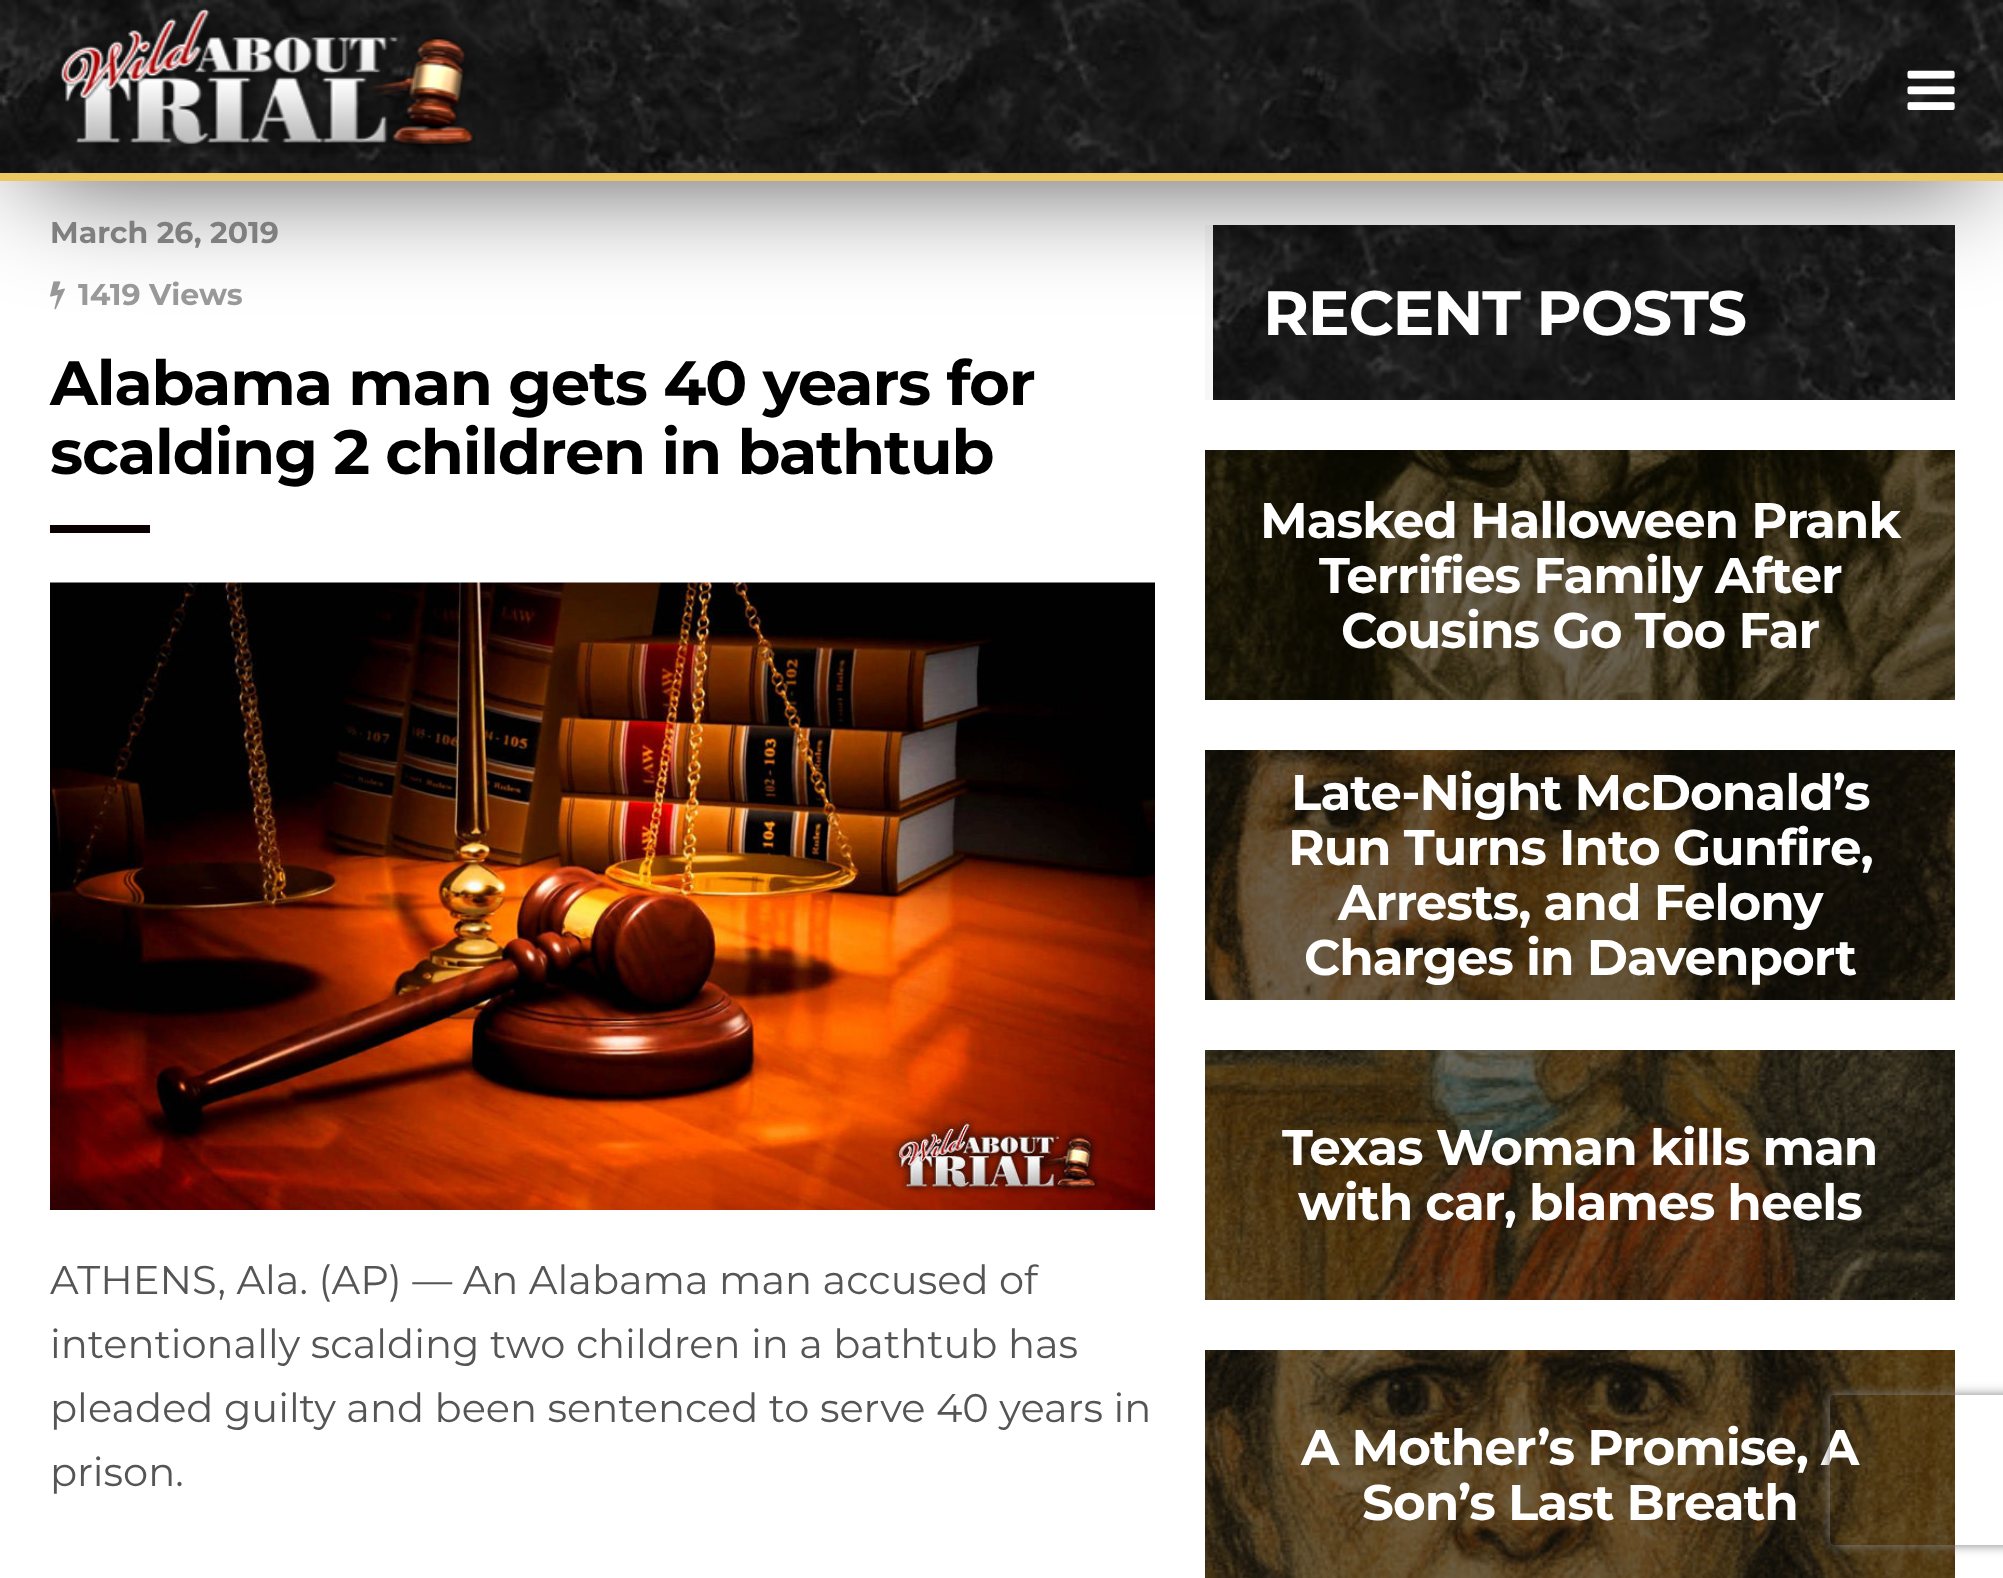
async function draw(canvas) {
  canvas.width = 2003
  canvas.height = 1578
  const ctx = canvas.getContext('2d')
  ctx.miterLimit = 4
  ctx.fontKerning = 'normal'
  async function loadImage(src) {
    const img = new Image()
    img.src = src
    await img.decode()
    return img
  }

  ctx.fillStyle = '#fff'
  ctx.fillRect(0, 0, 2003, 1578)
  ctx.drawImage(await loadImage('image3.png'), 50, 281, 15, 29)
  ctx.drawImage(await loadImage('image5.png'), 1213, 225, 742, 175)
  ctx.fillStyle = '#f7f7f7'
  ctx.fillRect(1205, 225, 8, 175)
  ctx.fillStyle = '#000000bf'
  ctx.filter = 'blur(59px)'
  ctx.beginPath()
  ctx.rect(30, 55, 1945, 120)
  ctx.fill()
  ctx.filter = 'none'
  ctx.drawImage(await loadImage('image0.png'), 0, 0, 2003, 173)
  ctx.fillStyle = '#ecc762'
  ctx.fillRect(0, 173, 2003, 8)
  ctx.drawImage(await loadImage('image1.png'), 60, 8, 416, 146)
  ctx.drawImage(await loadImage('image2.png'), 1907, 70, 48, 40)
  ctx.font = 'bold 30px Montserrat'
  ctx.fillStyle = '#7f7f7f'
  ctx.fillText('March 26, 2019', 50, 243)
  ctx.fillStyle = '#999'
  ctx.fillText('1419 Views', 78, 305)
  ctx.letterSpacing = '-1.25px'
  ctx.font = 'bold 62.5px Montserrat'
  ctx.fillStyle = '#000'
  ctx.fillText('Alabama man gets 40 years for', 50, 405)
  ctx.fillText('scalding 2 children in bathtub', 50, 474)
  ctx.fillStyle = '#0a0000'
  ctx.fillRect(50, 525, 100, 8)
  ctx.drawImage(await loadImage('image4.png'), 50, 582, 1105, 628)
  ctx.letterSpacing = '0px'
  ctx.font = '40px Montserrat'
  ctx.fillStyle = '#555'
  ctx.fillText('ATHENS, Ala. (AP) — An Alabama man accused of', 50, 1294)
  ctx.fillText('intentionally scalding two children in a bathtub has', 50, 1358)
  ctx.fillText('pleaded guilty and been sentenced to serve 40 years in', 50, 1422)
  ctx.fillText('prison.', 50, 1486)
  ctx.letterSpacing = '-1.25px'
  ctx.font = 'bold 62.5px Montserrat'
  ctx.fillStyle = '#fff'
  ctx.fillText('RECENT POSTS', 1263, 335)
  ctx.drawImage(await loadImage('image6.png'), 1205, 450, 750, 250)
  ctx.letterSpacing = '-1px'
  ctx.font = 'bold 50px Montserrat'
  ctx.fillText('Masked Halloween Prank', 1260, 538)
  ctx.fillText('Terrifies Family After', 1319, 593)
  ctx.fillText('Cousins Go Too Far', 1341, 648)
  ctx.drawImage(await loadImage('image7.png'), 1205, 750, 750, 250)
  ctx.fillText('Late-Night McDonald’s', 1291, 810)
  ctx.fillText('Run Turns Into Gunfire,', 1288, 865)
  ctx.fillText('Arrests, and Felony', 1338, 920)
  ctx.fillText('Charges in Davenport', 1304, 975)
  ctx.drawImage(await loadImage('image8.png'), 1205, 1050, 750, 250)
  ctx.fillText('Texas Woman kills man', 1282, 1165)
  ctx.fillText('with car, blames heels', 1298, 1220)
  ctx.drawImage(await loadImage('image9.png'), 1205, 1350, 750, 228)
  ctx.fillText('A Mother’s Promise, A', 1301, 1465)
  ctx.fillText('Son’s Last Breath', 1362, 1520)
  ctx.save()
  ctx.beginPath()
  ctx.moveTo(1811, 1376)
  ctx.lineTo(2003, 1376)
  ctx.lineTo(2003, 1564)
  ctx.lineTo(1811, 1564)
  ctx.closePath()
  ctx.moveTo(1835, 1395)
  ctx.lineTo(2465, 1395)
  ctx.bezierCurveTo(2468, 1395, 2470, 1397, 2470, 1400)
  ctx.lineTo(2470, 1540)
  ctx.bezierCurveTo(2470, 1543, 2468, 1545, 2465, 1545)
  ctx.lineTo(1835, 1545)
  ctx.bezierCurveTo(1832, 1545, 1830, 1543, 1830, 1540)
  ctx.lineTo(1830, 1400)
  ctx.bezierCurveTo(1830, 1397, 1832, 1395, 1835, 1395)
  ctx.closePath()
  ctx.clip('evenodd')
  ctx.fillStyle = '#808080'
  ctx.filter = 'blur(6px)'
  ctx.beginPath()
  ctx.roundRect(1830, 1395, 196, 150, 5)
  ctx.fill()
  ctx.filter = 'none'
  ctx.restore()
}

draw(document.querySelector('canvas'))
